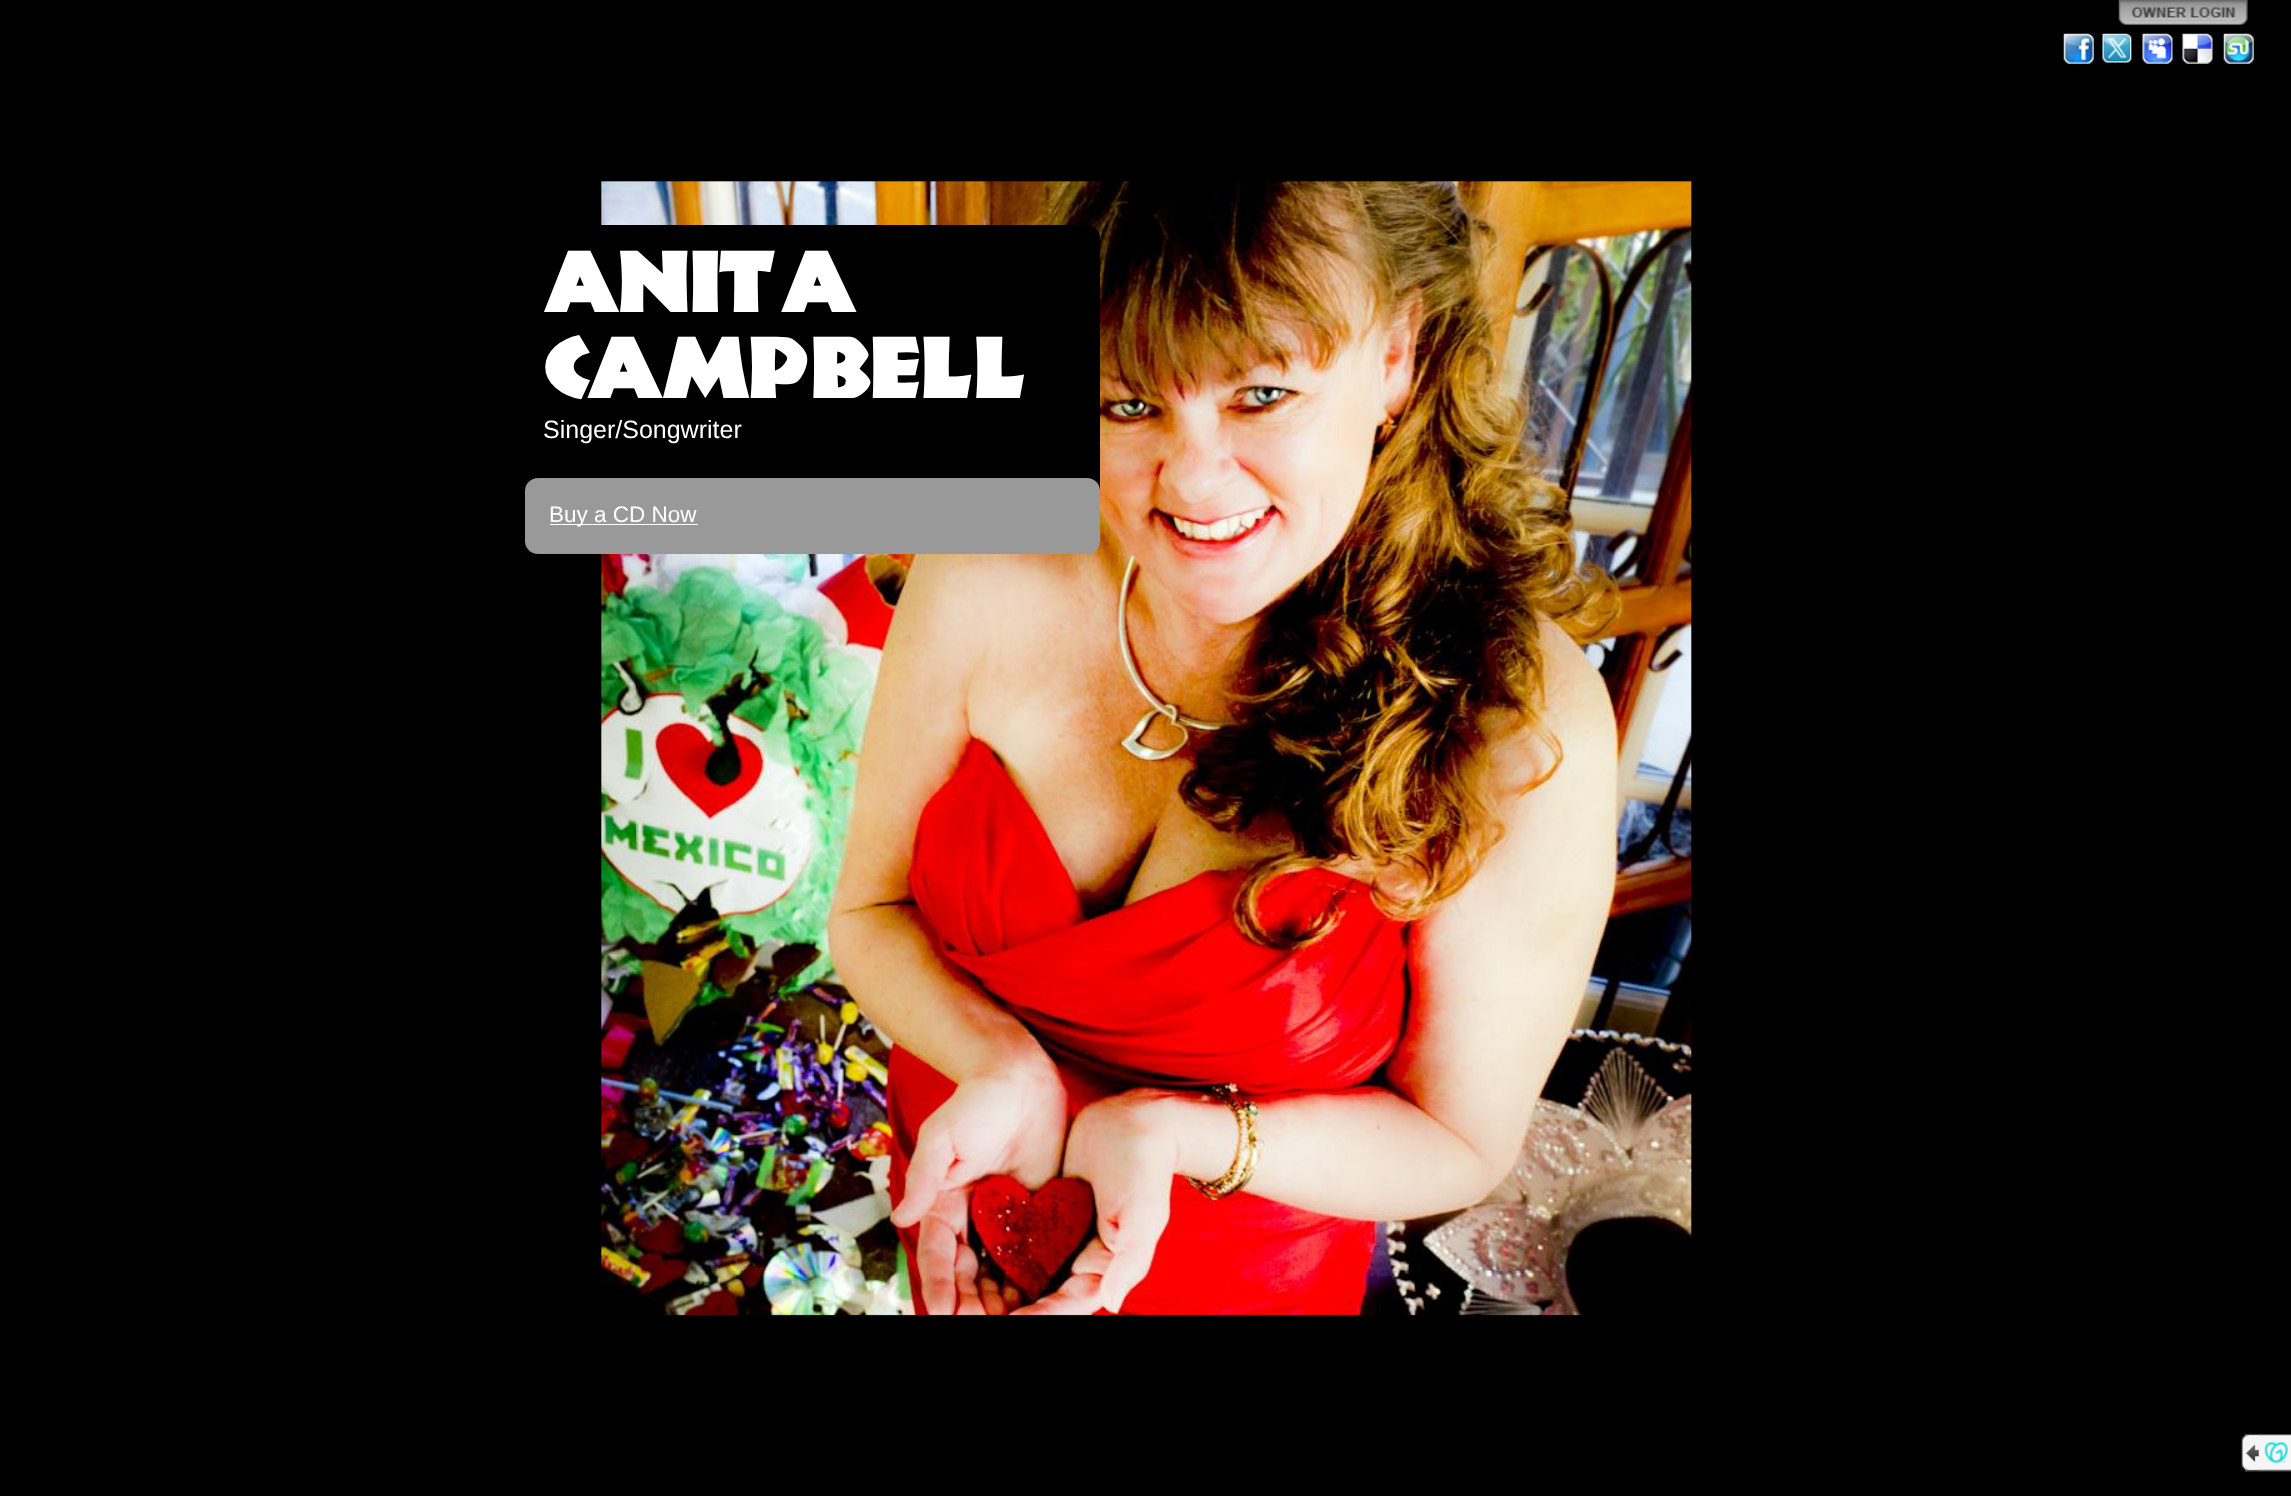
async function draw(canvas) {
  canvas.width = 2291
  canvas.height = 1496
  const ctx = canvas.getContext('2d')
  ctx.miterLimit = 4
  ctx.fontKerning = 'normal'
  async function loadImage(src) {
    const img = new Image()
    img.src = src
    await img.decode()
    return img
  }

  ctx.fillStyle = '#000'
  ctx.fillRect(0, 0, 2291, 1496)
  ctx.drawImage(await loadImage('image0.png'), 601, 181, 1091, 1135)
  ctx.drawImage(await loadImage('image1.png'), 2118, 0, 130, 25)
  ctx.drawImage(await loadImage('image2.png'), 2063, 33, 31, 31)
  ctx.drawImage(await loadImage('image3.png'), 2102, 33, 30, 30)
  ctx.drawImage(await loadImage('image4.png'), 2142, 33, 31, 31)
  ctx.drawImage(await loadImage('image5.png'), 2182, 33, 31, 31)
  ctx.drawImage(await loadImage('image6.png'), 2223, 33, 31, 31)
  ctx.beginPath()
  ctx.roundRect(525, 225, 575, 265, [13, 13, 0, 0])
  ctx.fill()
  ctx.font = '86.25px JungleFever'
  ctx.fillStyle = '#fff'
  ctx.fillText('ANITA', 543, 312)
  ctx.fillText('CAMPBELL', 543, 398)
  ctx.font = '25px Liberation Sans'
  ctx.fillText('Singer/Songwriter', 543, 438)
  ctx.fillStyle = '#999'
  ctx.beginPath()
  ctx.roundRect(525, 478, 575, 76, 13)
  ctx.fill()
  ctx.fillStyle = '#fff'
  ctx.fillRect(550, 524, 148, 1)
  ctx.font = '22.5px Liberation Sans'
  ctx.fillText('Buy a CD Now', 549, 522)
  ctx.drawImage(await loadImage('image7.png'), 2245, 1434, 46, 38)
  ctx.drawImage(await loadImage('image8.png'), 2245, 1470, 46, 2)
  ctx.drawImage(await loadImage('image9.png'), 2241, 1433, 18, 38)
  ctx.drawImage(await loadImage('image10.png'), 2264, 1441, 25, 23)
}

draw(document.querySelector('canvas'))
